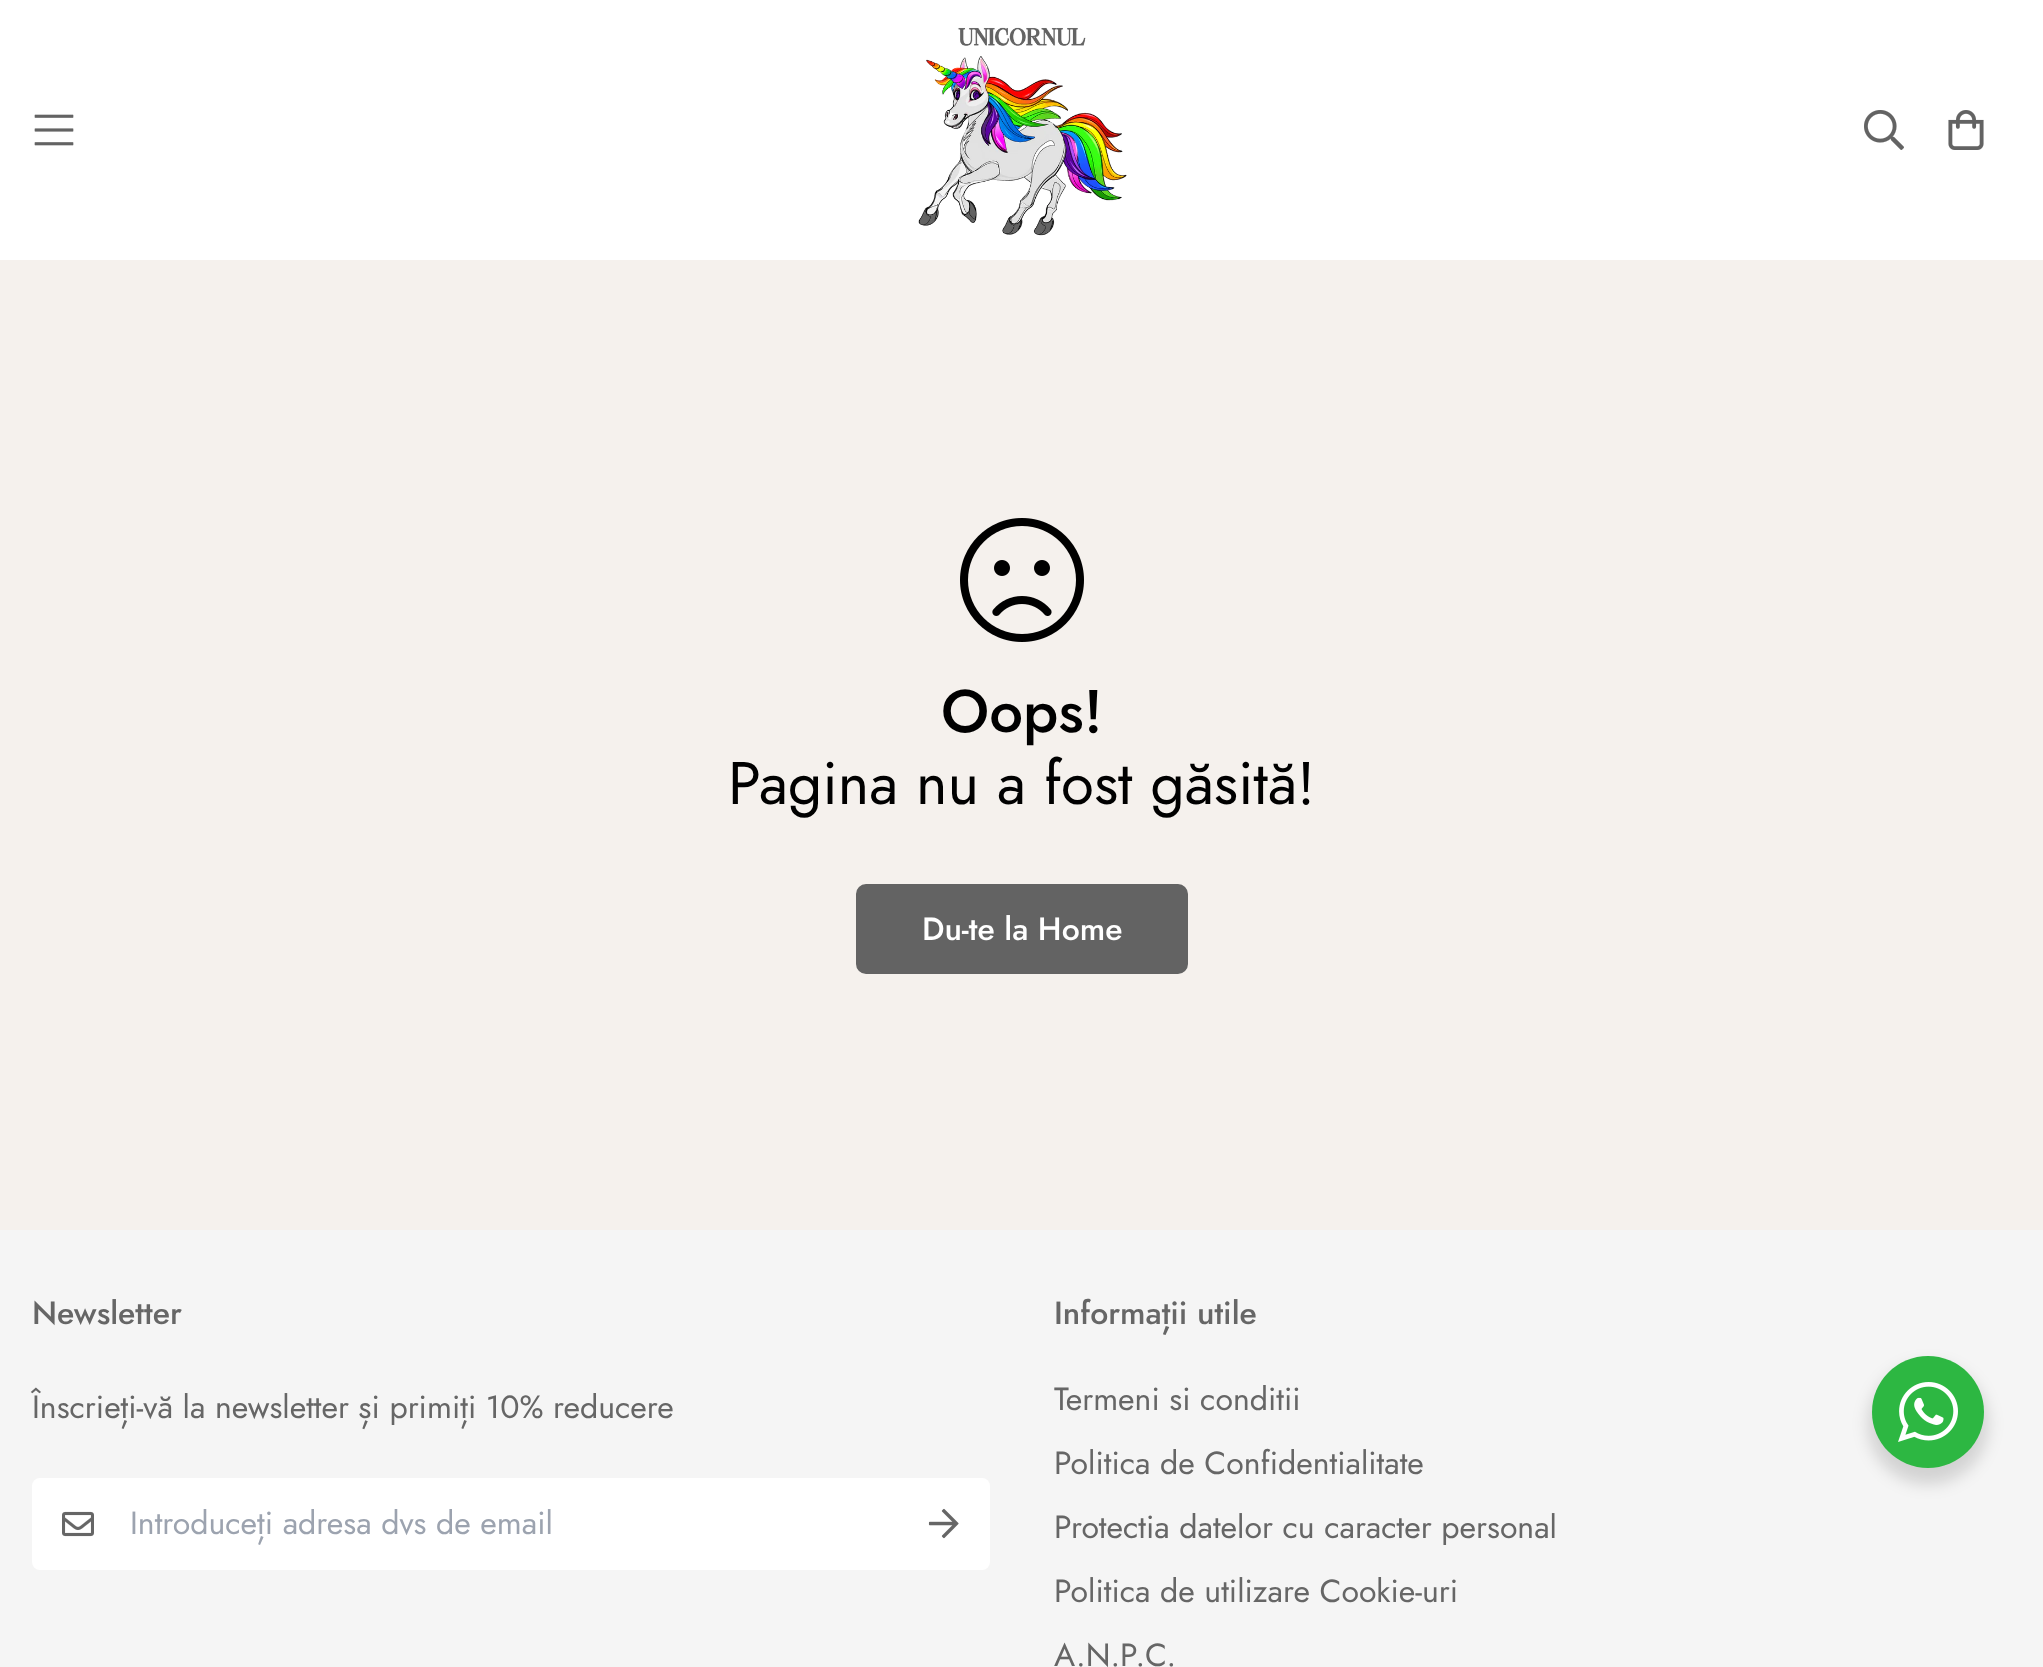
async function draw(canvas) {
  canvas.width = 2043
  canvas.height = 1667
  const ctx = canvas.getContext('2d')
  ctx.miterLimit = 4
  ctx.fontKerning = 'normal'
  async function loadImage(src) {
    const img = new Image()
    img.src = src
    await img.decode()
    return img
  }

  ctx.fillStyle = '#fff'
  ctx.fillRect(0, 0, 2043, 1667)
  ctx.drawImage(await loadImage('image0.png'), 34, 114, 40, 32)
  ctx.drawImage(await loadImage('image1.png'), 918, 27, 209, 209)
  ctx.drawImage(await loadImage('image2.png'), 1864, 110, 40, 40)
  ctx.drawImage(await loadImage('image3.png'), 1948, 110, 36, 40)
  ctx.fillStyle = '#f5f1ed'
  ctx.fillRect(0, 260, 2043, 970)
  ctx.drawImage(await loadImage('image4.png'), 960, 518, 124, 124)
  ctx.font = '500 60px Jost'
  ctx.fillStyle = '#000'
  ctx.fillText('Oops!', 941, 732)
  ctx.font = '60px Jost'
  ctx.fillText('Pagina nu a fost găsită!', 728, 804)
  ctx.fillStyle = '#636363'
  ctx.beginPath()
  ctx.roundRect(857, 885, 330, 88, 9)
  ctx.fill()
  ctx.strokeStyle = '#636363'
  ctx.lineWidth = 2
  ctx.stroke()
  ctx.font = '500 32px Jost'
  ctx.fillStyle = '#fff'
  ctx.fillText('Du-te la Home', 922, 940)
  ctx.fillStyle = '#f5f5f5'
  ctx.fillRect(0, 1230, 2043, 437)
  ctx.fillStyle = '#666'
  ctx.fillText('Newsletter', 32, 1324)
  ctx.font = '32px Jost'
  ctx.fillText('Înscrieți-vă la newsletter și primiți 10% reducere', 32, 1418)
  ctx.fillStyle = '#fff'
  ctx.beginPath()
  ctx.roundRect(32, 1478, 958, 92, 8)
  ctx.fill()
  ctx.drawImage(await loadImage('image5.png'), 62, 1511, 32, 26)
  ctx.fillStyle = '#9ca3af'
  ctx.fillText('Introduceți adresa dvs de email', 130, 1534)
  ctx.drawImage(await loadImage('image6.png'), 928, 1508, 31, 31)
  ctx.font = '500 32px Jost'
  ctx.fillStyle = '#666'
  ctx.fillText('Informații utile', 1054, 1324)
  ctx.font = '32px Jost'
  ctx.fillText('Termeni si conditii', 1054, 1410)
  ctx.fillText('Politica de Confidentialitate', 1054, 1474)
  ctx.fillText('Protectia datelor cu caracter personal', 1054, 1538)
  ctx.fillText('Politica de utilizare Cookie-uri', 1054, 1602)
  ctx.fillText('A.N.P.C.', 1054, 1666)
  ctx.fillStyle = '#00000024'
  ctx.filter = 'blur(8px)'
  ctx.beginPath()
  ctx.roundRect(1868, 1364, 120, 120, 60)
  ctx.fill()
  ctx.filter = 'none'
  ctx.fillStyle = '#2db742'
  ctx.beginPath()
  ctx.arc(1928, 1412, 56, 0, 2 * Math.PI)
  ctx.fill()
  ctx.drawImage(await loadImage('image7.png'), 1898, 1382, 60, 60)
}

draw(document.querySelector('canvas'))
